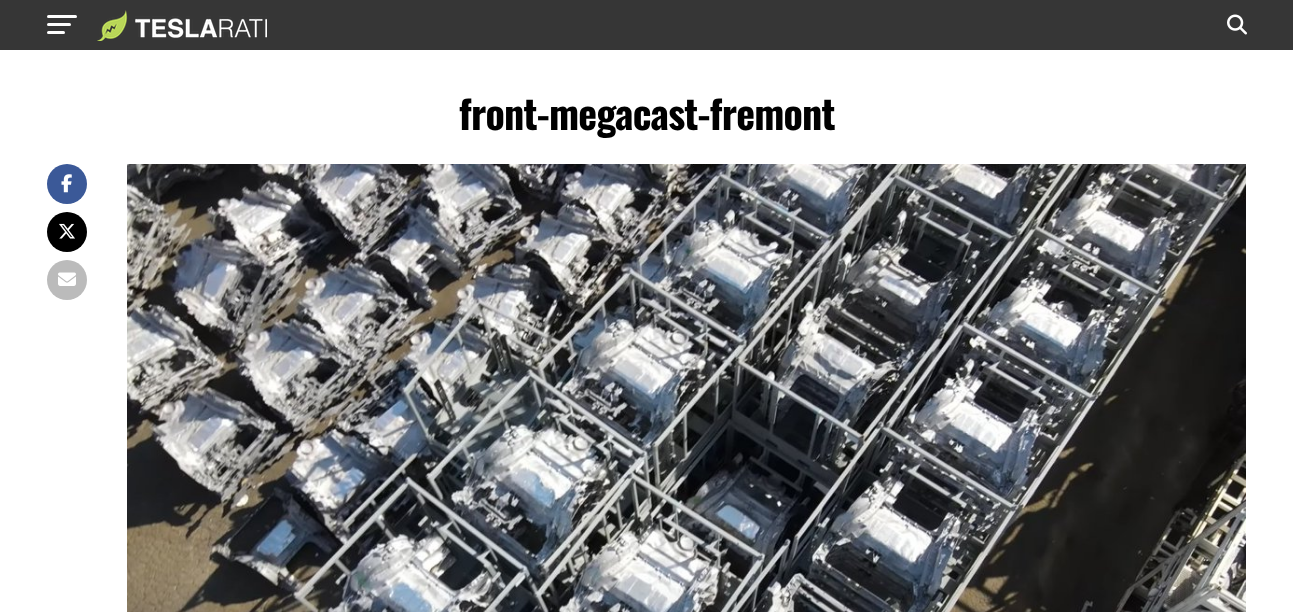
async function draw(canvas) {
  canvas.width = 1293
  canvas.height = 612
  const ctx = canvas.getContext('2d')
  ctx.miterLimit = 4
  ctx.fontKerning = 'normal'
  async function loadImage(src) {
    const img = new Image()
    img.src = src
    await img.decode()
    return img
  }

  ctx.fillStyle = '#fff'
  ctx.fillRect(0, 0, 1293, 612)
  ctx.fillStyle = '#363636'
  ctx.fillRect(0, 0, 1293, 50)
  ctx.fillStyle = '#fff'
  ctx.beginPath()
  ctx.roundRect(47, 15, 30, 3, 1.5)
  ctx.fill()
  ctx.beginPath()
  ctx.roundRect(47, 23, 24, 3, 1.5)
  ctx.fill()
  ctx.beginPath()
  ctx.roundRect(47, 31, 18, 3, 1.5)
  ctx.fill()
  ctx.drawImage(await loadImage('image0.png'), 97, 10, 170, 31)
  ctx.drawImage(await loadImage('image1.png'), 1227, 14, 20, 21)
  ctx.letterSpacing = '-0.8px'
  ctx.font = 'bold 40px Oswald'
  ctx.fillStyle = '#000'
  ctx.fillText('front-megacast-fremont', 459, 130)
  ctx.fillStyle = '#3b5998'
  ctx.beginPath()
  ctx.arc(67, 184, 20, 0, 2 * Math.PI)
  ctx.fill()
  ctx.drawImage(await loadImage('image2.png'), 61, 174, 11, 19)
  ctx.fillStyle = '#000'
  ctx.beginPath()
  ctx.arc(67, 232, 20, 0, 2 * Math.PI)
  ctx.fill()
  ctx.drawImage(await loadImage('image3.png'), 59, 223, 16, 16)
  ctx.fillStyle = '#bbb'
  ctx.beginPath()
  ctx.arc(67, 280, 20, 0, 2 * Math.PI)
  ctx.fill()
  ctx.drawImage(await loadImage('image4.png'), 58, 272, 18, 14)
  ctx.drawImage(await loadImage('image5.png'), 127, 164, 1119, 448)
}

draw(document.querySelector('canvas'))
